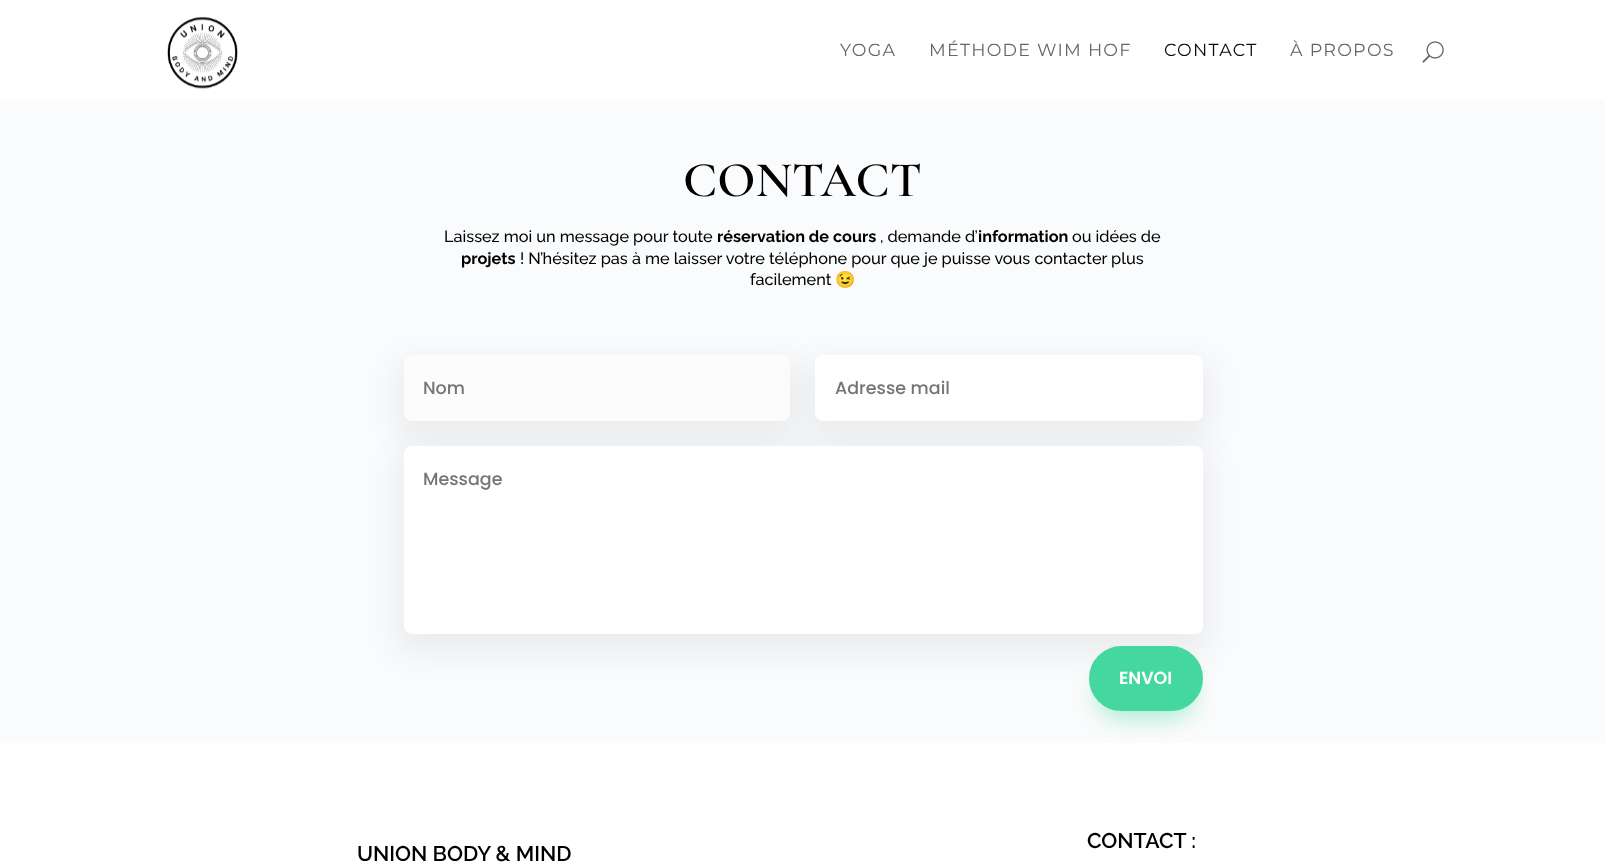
async function draw(canvas) {
  canvas.width = 1605
  canvas.height = 866
  const ctx = canvas.getContext('2d')
  ctx.miterLimit = 4
  ctx.fontKerning = 'normal'
  async function loadImage(src) {
    const img = new Image()
    img.src = src
    await img.decode()
    return img
  }

  ctx.fillStyle = '#fff'
  ctx.fillRect(0, 0, 1605, 866)
  ctx.drawImage(await loadImage('image0.png'), 167, 16, 71, 73)
  ctx.letterSpacing = '1.25px'
  ctx.font = '100 17.5px Montserrat'
  ctx.fillStyle = '#666'
  ctx.fillText('YOGA', 840, 56)
  ctx.fillText('MÉTHODE WIM HOF', 929, 56)
  ctx.fillStyle = '#0c0c0c'
  ctx.fillText('CONTACT', 1164, 56)
  ctx.fillStyle = '#666'
  ctx.fillText('À PROPOS', 1290, 56)
  ctx.drawImage(await loadImage('image1.png'), 1422, 41, 22, 22)
  ctx.fillStyle = '#fafbfc'
  ctx.fillRect(0, 100, 1605, 643)
  ctx.letterSpacing = '0px'
  ctx.font = '600 50px Cormorant Garamond'
  ctx.fillStyle = '#000'
  ctx.fillText('CONTACT', 683, 196)
  ctx.font = '100 16.25px Raleway'
  ctx.fillText('Laissez moi un message pour toute', 444, 242)
  ctx.font = '100 16.25px "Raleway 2"'
  ctx.fillText('réservation de cours', 717, 242)
  ctx.font = '100 16.25px Raleway'
  ctx.fillText(', demande d’', 880, 242)
  ctx.font = '100 16.25px "Raleway 2"'
  ctx.fillText('information', 978, 242)
  ctx.font = '100 16.25px Raleway'
  ctx.fillText('ou idées de', 1072, 242)
  ctx.font = '100 16.25px "Raleway 2"'
  ctx.fillText('projets', 461, 264)
  ctx.font = '100 16.25px Raleway'
  ctx.fillText('! N’hésitez pas à me laisser votre téléphone pour que je puisse vous contacter plus', 520, 264)
  ctx.fillText('facilement', 750, 285)
  ctx.font = '16.25px Noto Color Emoji'
  ctx.fillText('😉', 835, 285)
  ctx.fillStyle = '#0000000f'
  ctx.filter = 'blur(15px)'
  ctx.beginPath()
  ctx.roundRect(396, 360, 402, 81, 15)
  ctx.fill()
  ctx.filter = 'none'
  ctx.fillStyle = '#fcfcfc'
  ctx.beginPath()
  ctx.roundRect(404, 355, 386, 66, 8)
  ctx.fill()
  ctx.font = '500 17.5px Poppins'
  ctx.fillStyle = '#757575'
  ctx.fillText('Nom', 423, 394)
  ctx.fillStyle = '#0000000f'
  ctx.filter = 'blur(15px)'
  ctx.beginPath()
  ctx.roundRect(808, 360, 402, 81, 15)
  ctx.fill()
  ctx.filter = 'none'
  ctx.fillStyle = '#fff'
  ctx.beginPath()
  ctx.roundRect(815, 355, 388, 66, 8)
  ctx.fill()
  ctx.fillStyle = '#757575'
  ctx.fillText('Adresse mail', 835, 394)
  ctx.fillStyle = '#0000000f'
  ctx.filter = 'blur(15px)'
  ctx.beginPath()
  ctx.roundRect(396, 451, 814, 203, 15)
  ctx.fill()
  ctx.filter = 'none'
  ctx.fillStyle = '#fff'
  ctx.beginPath()
  ctx.roundRect(404, 446, 799, 188, 8)
  ctx.fill()
  ctx.fillStyle = '#757575'
  ctx.fillText('Message', 423, 485)
  ctx.fillStyle = '#44d89e69'
  ctx.filter = 'blur(11px)'
  ctx.beginPath()
  ctx.roundRect(1096, 669, 99, 50, 25)
  ctx.fill()
  ctx.filter = 'none'
  ctx.fillStyle = '#44d89e'
  ctx.beginPath()
  ctx.roundRect(1095.5, 652.5, 101, 52, 26)
  ctx.fill()
  ctx.strokeStyle = '#44d89e'
  ctx.lineWidth = 13
  ctx.stroke()
  ctx.font = '600 17.5px Poppins'
  ctx.fillStyle = '#fff'
  ctx.fillText('ENVOI', 1119, 684)
  ctx.font = '100 21.25px "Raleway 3"'
  ctx.fillStyle = '#000'
  ctx.fillText('CONTACT :', 1087, 848)
  ctx.fillText('UNION BODY & MIND', 357, 861)
}

draw(document.querySelector('canvas'))
